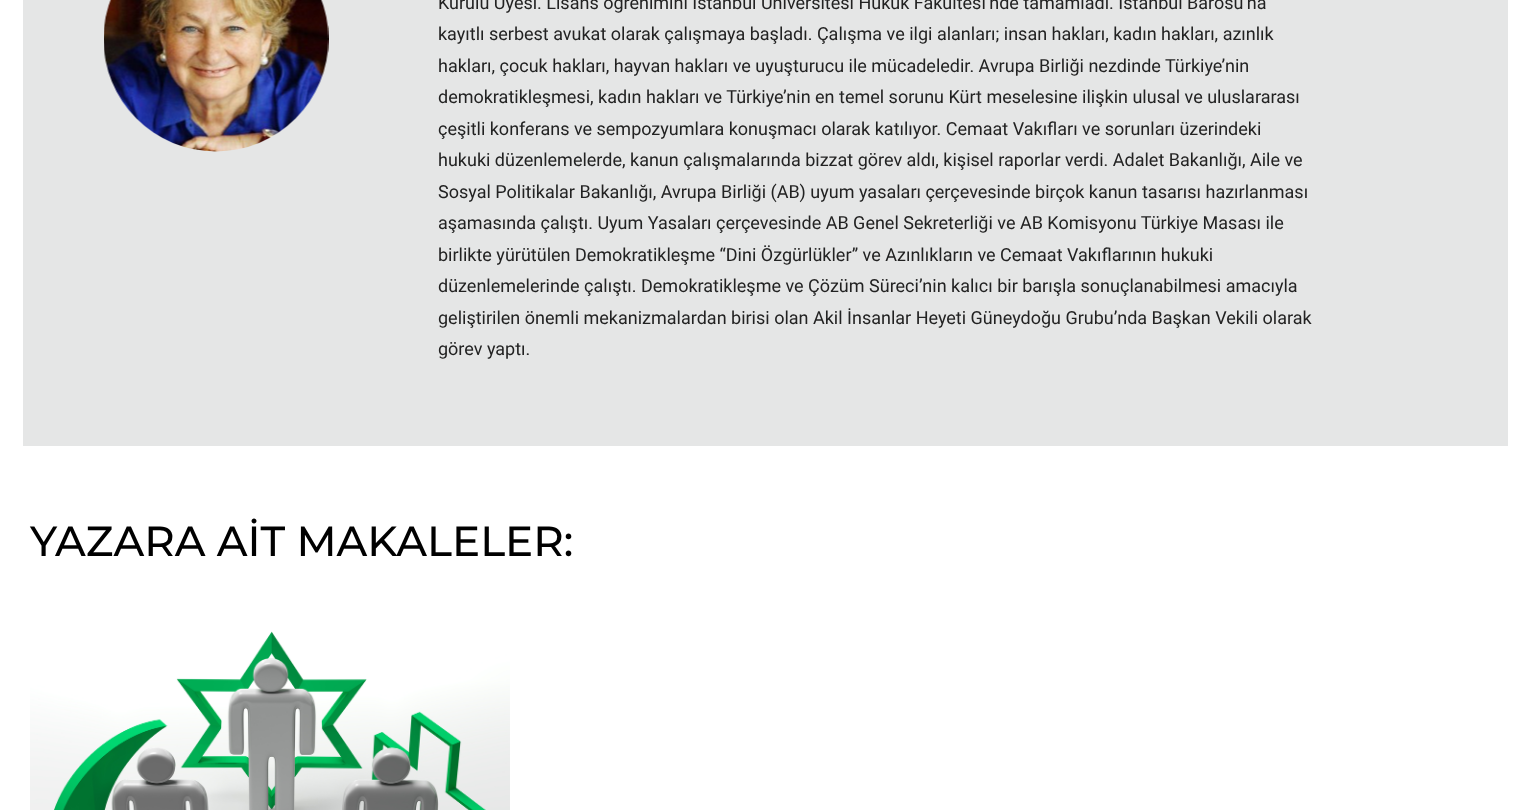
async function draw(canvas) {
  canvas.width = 1529
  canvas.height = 810
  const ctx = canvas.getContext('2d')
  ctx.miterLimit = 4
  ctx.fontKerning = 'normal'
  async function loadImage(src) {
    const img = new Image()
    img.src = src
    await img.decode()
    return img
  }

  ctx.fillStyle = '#fff'
  ctx.fillRect(0, 0, 1529, 810)
  ctx.fillStyle = '#e5e6e6'
  ctx.fillRect(23, 0, 1485, 446)
  ctx.drawImage(await loadImage('image0.png'), 104, 0, 225, 152)
  ctx.font = '18px Roboto'
  ctx.fillStyle = '#222'
  ctx.fillText('Kurulu Üyesi. Lisans öğrenimini İstanbul Üniversitesi Hukuk Fakültesi’nde tamamladı. İstanbul Barosu’na', 438, 9)
  ctx.fillText('kayıtlı serbest avukat olarak çalışmaya başladı. Çalışma ve ilgi alanları; insan hakları, kadın hakları, azınlık', 438, 40)
  ctx.fillText('hakları, çocuk hakları, hayvan hakları ve uyuşturucu ile mücadeledir. Avrupa Birliği nezdinde Türkiye’nin', 438, 72)
  ctx.fillText('demokratikleşmesi, kadın hakları ve Türkiye’nin en temel sorunu Kürt meselesine ilişkin ulusal ve uluslararası', 438, 103)
  ctx.fillText('çeşitli konferans ve sempozyumlara konuşmacı olarak katılıyor. Cemaat Vakıfları ve sorunları üzerindeki', 438, 135)
  ctx.fillText('hukuki düzenlemelerde, kanun çalışmalarında bizzat görev aldı, kişisel raporlar verdi. Adalet Bakanlığı, Aile ve', 438, 166)
  ctx.fillText('Sosyal Politikalar Bakanlığı, Avrupa Birliği (AB) uyum yasaları çerçevesinde birçok kanun tasarısı hazırlanması', 438, 198)
  ctx.fillText('aşamasında çalıştı. Uyum Yasaları çerçevesinde AB Genel Sekreterliği ve AB Komisyonu Türkiye Masası ile', 438, 229)
  ctx.fillText('birlikte yürütülen Demokratikleşme “Dini Özgürlükler” ve Azınlıkların ve Cemaat Vakıflarının hukuki', 438, 261)
  ctx.fillText('düzenlemelerinde çalıştı. Demokratikleşme ve Çözüm Süreci’nin kalıcı bir barışla sonuçlanabilmesi amacıyla', 438, 292)
  ctx.fillText('geliştirilen önemli mekanizmalardan birisi olan Akil İnsanlar Heyeti Güneydoğu Grubu’nda Başkan Vekili olarak', 438, 324)
  ctx.fillText('görev yaptı.', 438, 355)
  ctx.font = '500 42px Montserrat'
  ctx.fillStyle = '#000'
  ctx.fillText('YAZARA AİT MAKALELER:', 30, 556)
  ctx.drawImage(await loadImage('image1.png'), 30, 631, 480, 179)
}

draw(document.querySelector('canvas'))
